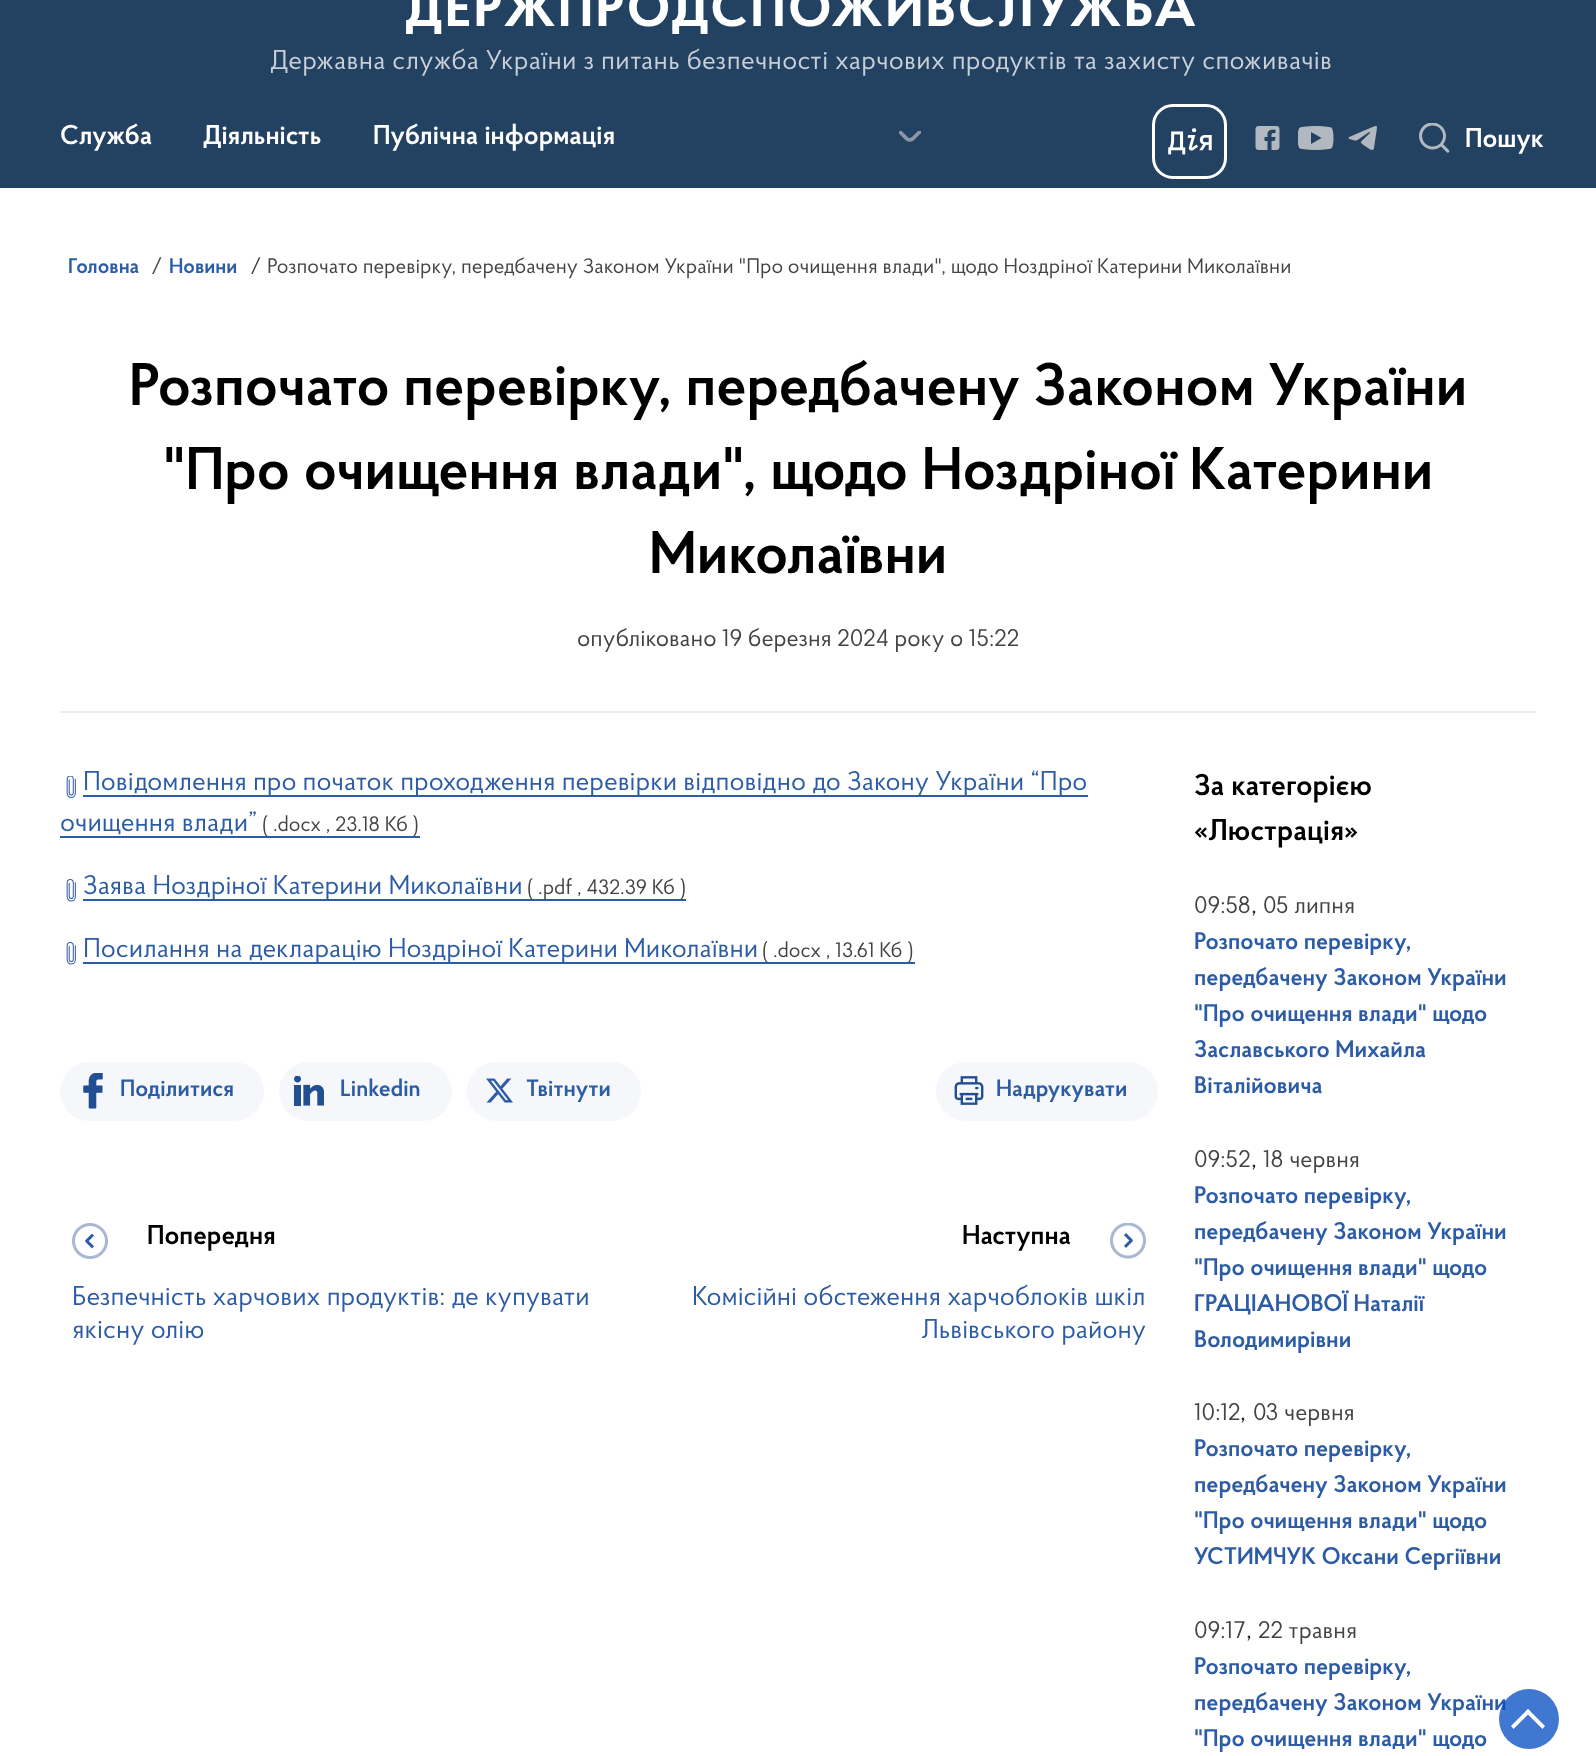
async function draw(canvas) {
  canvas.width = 1596
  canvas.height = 1756
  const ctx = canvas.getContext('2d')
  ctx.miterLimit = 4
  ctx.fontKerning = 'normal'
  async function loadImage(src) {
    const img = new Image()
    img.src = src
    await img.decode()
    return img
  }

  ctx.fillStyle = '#fff'
  ctx.fillRect(0, 0, 1596, 1756)
  ctx.fillStyle = '#234161'
  ctx.fillRect(0, 0, 1596, 188)
  ctx.letterSpacing = '3px'
  ctx.font = 'bold 54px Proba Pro'
  ctx.fillStyle = '#fff'
  ctx.fillText('ДЕРЖПРОДСПОЖИВСЛУЖБА', 405, 26)
  ctx.letterSpacing = '0.3px'
  ctx.font = '27px Proba Pro'
  ctx.fillStyle = '#c8cfd7'
  ctx.fillText('Державна служба України з питань безпечності харчових продуктів та захисту споживачів', 270, 69)
  ctx.letterSpacing = '0px'
  ctx.font = '600 27px Proba Pro'
  ctx.fillStyle = '#fff'
  ctx.fillText('Служба', 60, 144)
  ctx.fillText('Діяльність', 203, 144)
  ctx.fillText('Публічна інформація', 373, 144)
  ctx.drawImage(await loadImage('image0.png'), 899, 131, 22, 11)
  ctx.drawImage(await loadImage('image1.png'), 1168, 128, 44, 27)
  ctx.beginPath()
  ctx.roundRect(1153.5, 105.5, 72, 72, 19.5)
  ctx.strokeStyle = '#fff'
  ctx.lineWidth = 3
  ctx.stroke()
  ctx.drawImage(await loadImage('image2.png'), 1255, 126, 25, 24)
  ctx.drawImage(await loadImage('image3.png'), 1298, 126, 36, 24)
  ctx.drawImage(await loadImage('image4.png'), 1348, 126, 29, 24)
  ctx.drawImage(await loadImage('image5.png'), 1419, 123, 31, 30)
  ctx.fillText('Пошук', 1465, 147)
  ctx.font = '600 21px Proba Pro'
  ctx.fillStyle = '#2d5ca6'
  ctx.fillText('Головна', 68, 273)
  ctx.font = '21px Proba Pro'
  ctx.fillStyle = '#444'
  ctx.fillText('/', 151, 273)
  ctx.font = '600 21px Proba Pro'
  ctx.fillStyle = '#2d5ca6'
  ctx.fillText('Новини', 169, 273)
  ctx.font = '21px Proba Pro'
  ctx.fillStyle = '#444'
  ctx.fillText('/', 250, 273)
  ctx.fillText('Розпочато перевірку, передбачену Законом України "Про очищення влади", щодо Ноздріної Катерини Миколаївни', 267, 273)
  ctx.font = '600 60px Proba Pro'
  ctx.fillStyle = '#000'
  ctx.fillText('Розпочато перевірку, передбачену Законом України', 129, 405)
  ctx.fillText('"Про очищення влади", щодо Ноздріної Катерини', 163, 489)
  ctx.fillText('Миколаївни', 649, 573)
  ctx.font = '24px Proba Pro'
  ctx.fillStyle = '#444'
  ctx.fillText('опубліковано 19 березня 2024 року о 15:22', 577, 646)
  ctx.fillStyle = '#ececec'
  ctx.fillRect(60, 711, 1476, 2)
  ctx.drawImage(await loadImage('image6.png'), 66, 776, 10, 22)
  ctx.fillStyle = '#2d5ca6'
  ctx.fillRect(83, 795, 1005, 2)
  ctx.font = '27px Proba Pro'
  ctx.fillText('Повідомлення про початок проходження перевірки відповідно до Закону України “Про', 83, 790)
  ctx.fillText('очищення влади”', 60, 831)
  ctx.fillRect(60, 836, 360, 2)
  ctx.font = '21px Proba Pro'
  ctx.fillStyle = '#444'
  ctx.fillText('( .docx , 23.18 Кб )', 262, 831)
  ctx.drawImage(await loadImage('image7.png'), 66, 879, 10, 23)
  ctx.fillStyle = '#2d5ca6'
  ctx.fillRect(83, 899, 603, 2)
  ctx.font = '27px Proba Pro'
  ctx.fillText('Заява Ноздріної Катерини Миколаївни', 83, 894)
  ctx.font = '21px Proba Pro'
  ctx.fillStyle = '#444'
  ctx.fillText('( .pdf , 432.39 Кб )', 527, 894)
  ctx.drawImage(await loadImage('image7.png'), 66, 942, 10, 23)
  ctx.fillStyle = '#2d5ca6'
  ctx.fillRect(83, 962, 832, 2)
  ctx.font = '27px Proba Pro'
  ctx.fillText('Посилання на декларацію Ноздріної Катерини Миколаївни', 83, 957)
  ctx.font = '21px Proba Pro'
  ctx.fillStyle = '#444'
  ctx.fillText('( .docx , 13.61 Кб )', 762, 957)
  ctx.fillStyle = '#f5f7fa'
  ctx.beginPath()
  ctx.roundRect(60, 1062, 204, 59, 29.5)
  ctx.fill()
  ctx.drawImage(await loadImage('image8.png'), 83, 1073, 20, 36)
  ctx.font = '600 23.5px Proba Pro'
  ctx.fillStyle = '#2d5ca6'
  ctx.fillText('Поділитися', 120, 1096)
  ctx.fillStyle = '#f5f7fa'
  ctx.beginPath()
  ctx.roundRect(279, 1062, 173, 59, 29.5)
  ctx.fill()
  ctx.drawImage(await loadImage('image9.png'), 294, 1076, 30, 30)
  ctx.fillStyle = '#2d5ca6'
  ctx.fillText('Linkedin', 340, 1096)
  ctx.fillStyle = '#f5f7fa'
  ctx.beginPath()
  ctx.roundRect(467, 1062, 174, 59, 29.5)
  ctx.fill()
  ctx.drawImage(await loadImage('image10.png'), 486, 1078, 27, 25)
  ctx.fillStyle = '#2d5ca6'
  ctx.fillText('Твітнути', 526, 1096)
  ctx.fillStyle = '#f5f7fa'
  ctx.beginPath()
  ctx.roundRect(936, 1062, 222, 59, 29.5)
  ctx.fill()
  ctx.drawImage(await loadImage('image11.png'), 954, 1076, 30, 29)
  ctx.fillStyle = '#2d5ca6'
  ctx.fillText('Надрукувати', 996, 1096)
  ctx.drawImage(await loadImage('image12.png'), 72, 1223, 36, 36)
  ctx.font = '600 27px Proba Pro'
  ctx.fillStyle = '#000'
  ctx.fillText('Попередня', 147, 1244)
  ctx.font = '27px Proba Pro'
  ctx.fillStyle = '#2d5ca6'
  ctx.fillText('Безпечність харчових продуктів: де купувати', 72, 1305)
  ctx.fillText('якісну олію', 72, 1338)
  ctx.font = '600 27px Proba Pro'
  ctx.fillStyle = '#000'
  ctx.fillText('Наступна', 962, 1244)
  ctx.drawImage(await loadImage('image13.png'), 1110, 1223, 36, 36)
  ctx.font = '27px Proba Pro'
  ctx.fillStyle = '#2d5ca6'
  ctx.fillText('Комісійні обстеження харчоблоків шкіл', 692, 1305)
  ctx.fillText('Львівського району', 921, 1338)
  ctx.font = '600 30px Proba Pro'
  ctx.fillStyle = '#000'
  ctx.fillText('За категорією', 1194, 795)
  ctx.fillText('«Люстрація»', 1194, 840)
  ctx.font = '24px Proba Pro'
  ctx.fillStyle = '#444'
  ctx.fillText('09:58', 1194, 913)
  ctx.font = '27px Proba Pro'
  ctx.fillStyle = '#212529'
  ctx.fillText(',', 1251, 913)
  ctx.font = '24px Proba Pro'
  ctx.fillStyle = '#444'
  ctx.fillText('05 липня', 1263, 913)
  ctx.font = '600 24px Proba Pro'
  ctx.fillStyle = '#2d5ca6'
  ctx.fillText('Розпочато перевірку,', 1194, 949)
  ctx.fillText('передбачену Законом України', 1194, 985)
  ctx.fillText('"Про очищення влади" щодо', 1194, 1021)
  ctx.fillText('Заславського Михайла', 1194, 1057)
  ctx.fillText('Віталійовича', 1194, 1093)
  ctx.font = '24px Proba Pro'
  ctx.fillStyle = '#444'
  ctx.fillText('09:52', 1194, 1167)
  ctx.font = '27px Proba Pro'
  ctx.fillStyle = '#212529'
  ctx.fillText(',', 1251, 1167)
  ctx.font = '24px Proba Pro'
  ctx.fillStyle = '#444'
  ctx.fillText('18 червня', 1263, 1167)
  ctx.font = '600 24px Proba Pro'
  ctx.fillStyle = '#2d5ca6'
  ctx.fillText('Розпочато перевірку,', 1194, 1203)
  ctx.fillText('передбачену Законом України', 1194, 1239)
  ctx.fillText('"Про очищення влади" щодо', 1194, 1275)
  ctx.fillText('ГРАЦІАНОВОЇ Наталії', 1194, 1311)
  ctx.fillText('Володимирівни', 1194, 1347)
  ctx.font = '24px Proba Pro'
  ctx.fillStyle = '#444'
  ctx.fillText('10:12', 1194, 1420)
  ctx.font = '27px Proba Pro'
  ctx.fillStyle = '#212529'
  ctx.fillText(',', 1240, 1420)
  ctx.font = '24px Proba Pro'
  ctx.fillStyle = '#444'
  ctx.fillText('03 червня', 1253, 1420)
  ctx.font = '600 24px Proba Pro'
  ctx.fillStyle = '#2d5ca6'
  ctx.fillText('Розпочато перевірку,', 1194, 1456)
  ctx.fillText('передбачену Законом України', 1194, 1492)
  ctx.fillText('"Про очищення влади" щодо', 1194, 1528)
  ctx.fillText('УСТИМЧУК Оксани Сергіївни', 1194, 1564)
  ctx.font = '24px Proba Pro'
  ctx.fillStyle = '#444'
  ctx.fillText('09:17', 1194, 1638)
  ctx.font = '27px Proba Pro'
  ctx.fillStyle = '#212529'
  ctx.fillText(',', 1246, 1638)
  ctx.font = '24px Proba Pro'
  ctx.fillStyle = '#444'
  ctx.fillText('22 травня', 1258, 1638)
  ctx.font = '600 24px Proba Pro'
  ctx.fillStyle = '#2d5ca6'
  ctx.fillText('Розпочато перевірку,', 1194, 1674)
  ctx.fillText('передбачену Законом України', 1194, 1710)
  ctx.fillText('"Про очищення влади" щодо', 1194, 1746)
  ctx.fillStyle = '#004bc1bf'
  ctx.beginPath()
  ctx.arc(1529, 1719, 30, 0, 2 * Math.PI)
  ctx.fill()
  ctx.fillStyle = '#fff'
  ctx.beginPath()
  ctx.moveTo(1525.5, 1712)
  ctx.lineTo(1528, 1709)
  ctx.lineTo(1545, 1726)
  ctx.lineTo(1542.5, 1729)
  ctx.closePath()
  ctx.fill()
  ctx.beginPath()
  ctx.moveTo(1528, 1709)
  ctx.lineTo(1530.5, 1712)
  ctx.lineTo(1513.5, 1729)
  ctx.lineTo(1511, 1726)
  ctx.closePath()
  ctx.fill()
}

draw(document.querySelector('canvas'))
